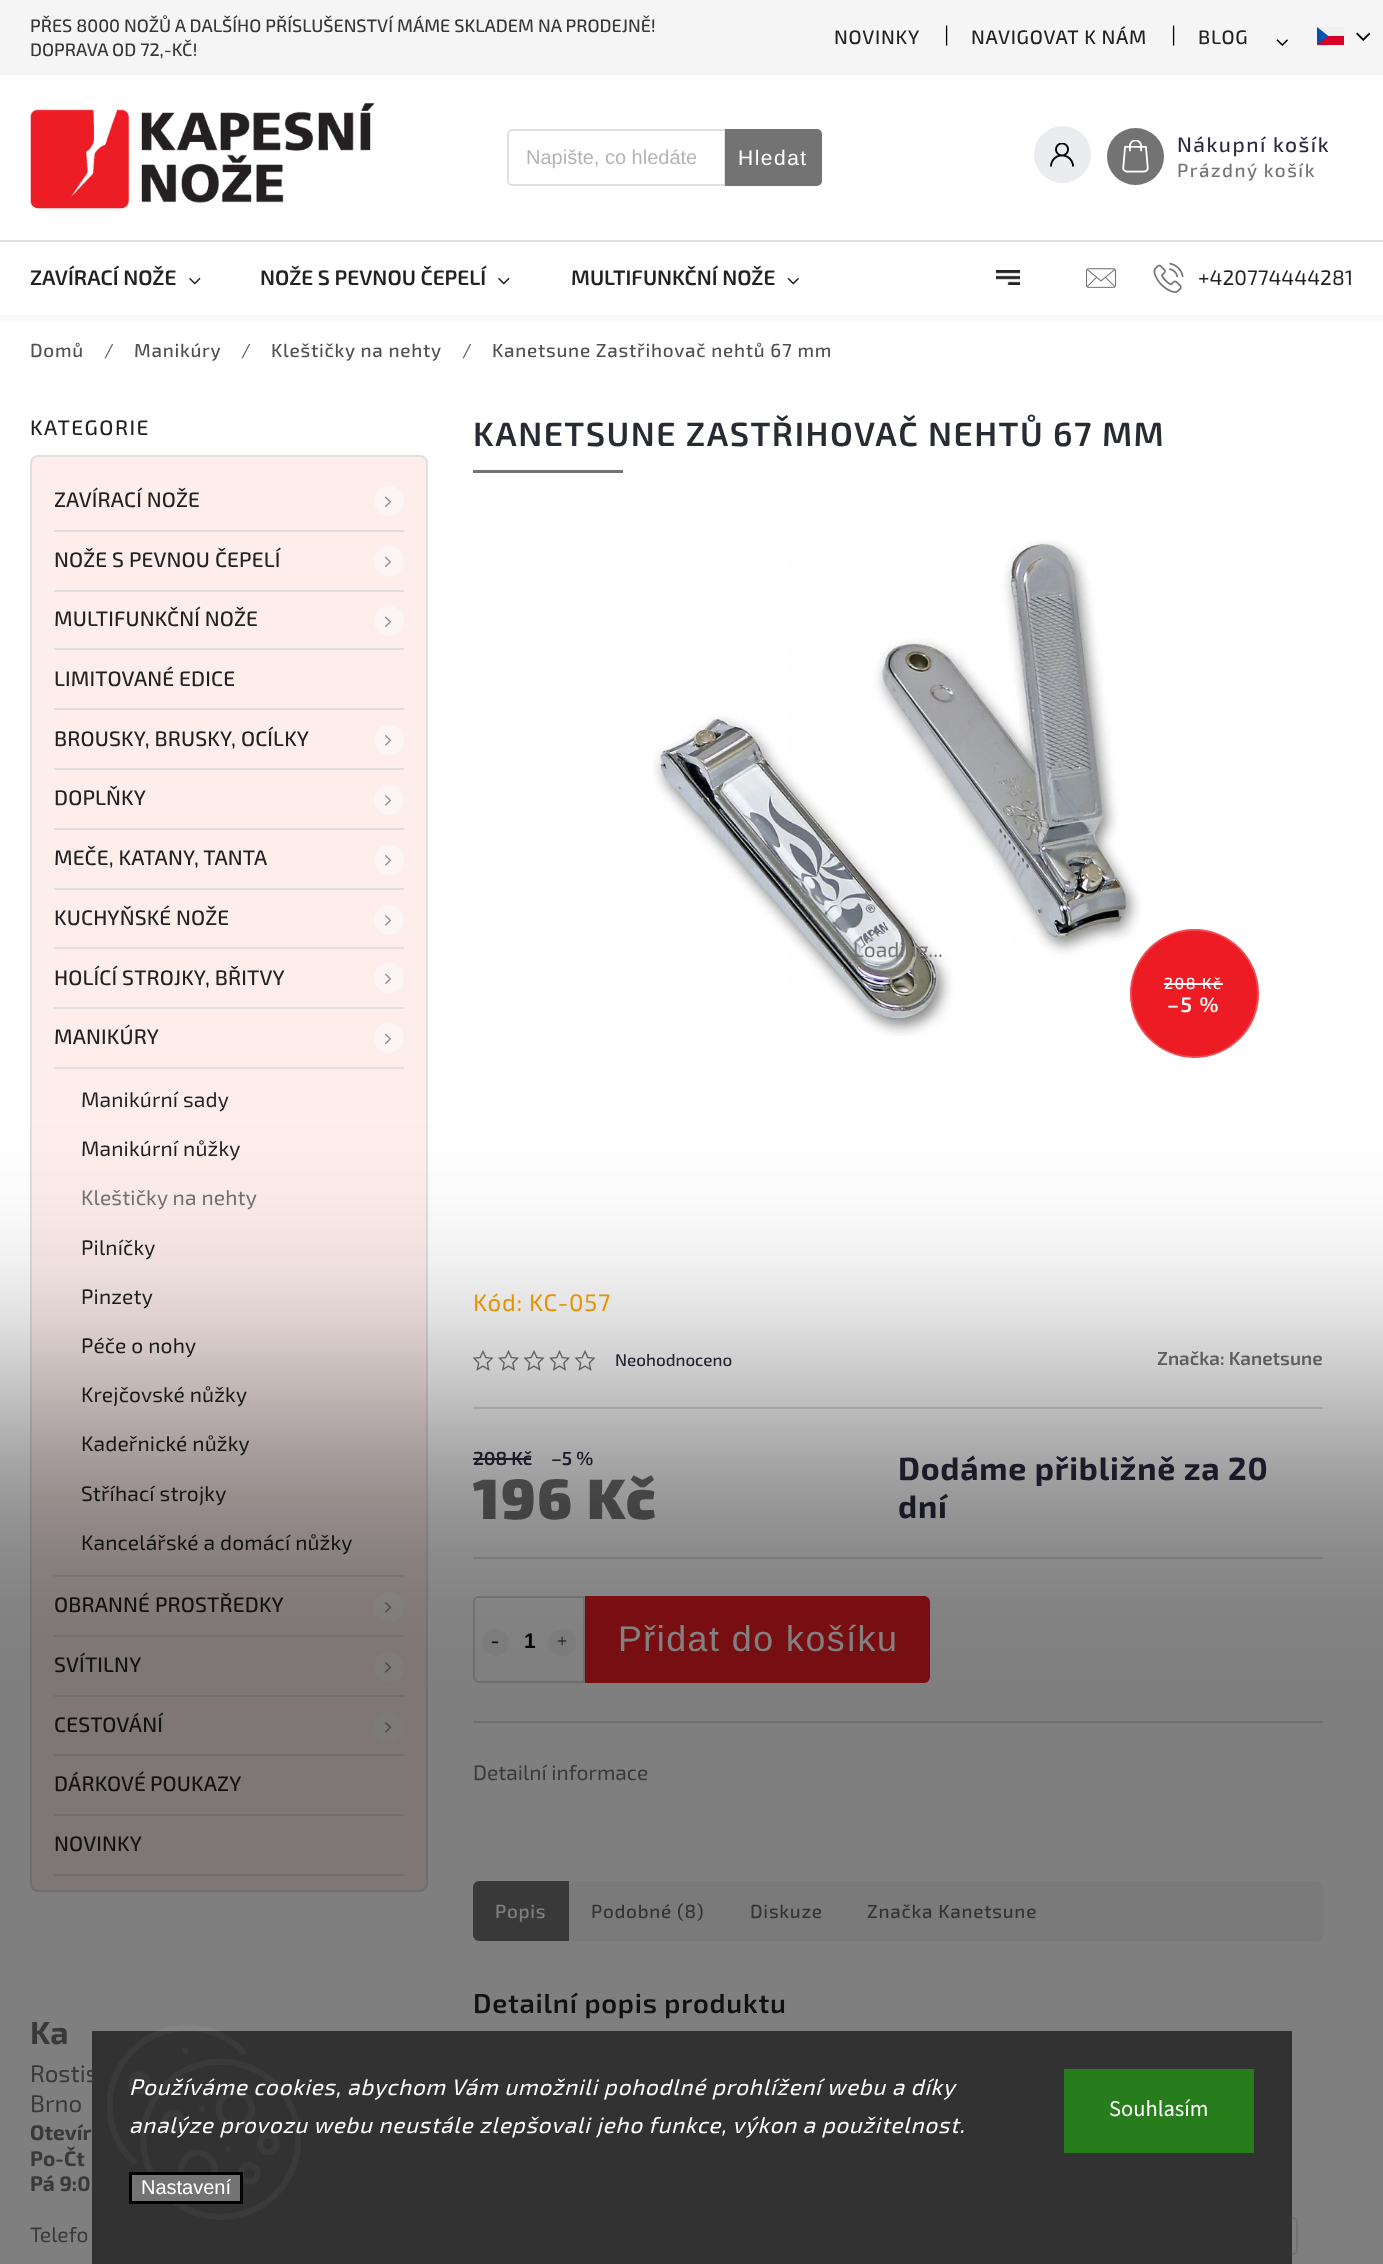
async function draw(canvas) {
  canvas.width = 1383
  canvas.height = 2264
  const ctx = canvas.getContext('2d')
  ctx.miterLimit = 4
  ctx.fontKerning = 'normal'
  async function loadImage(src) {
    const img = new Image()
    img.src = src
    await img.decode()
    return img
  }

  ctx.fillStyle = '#fff'
  ctx.fillRect(0, 0, 1383, 2264)
  ctx.fillStyle = '#f5f5f5'
  ctx.fillRect(0, 0, 1383, 75)
  ctx.font = '500 18px "Exo 2"'
  ctx.fillStyle = '#373737'
  ctx.fillText('PŘES 8000 NOŽŮ A DALŠÍHO PŘÍSLUŠENSTVÍ MÁME SKLADEM NA PRODEJNĚ!', 30, 32)
  ctx.fillText('DOPRAVA OD 72,-KČ!', 30, 56)
  ctx.letterSpacing = '0.75px'
  ctx.font = '500 19.5px "Exo 2"'
  ctx.fillStyle = '#222'
  ctx.fillText('NOVINKY', 834, 44)
  ctx.letterSpacing = '0px'
  ctx.font = '21px "Exo 2"'
  ctx.fillStyle = '#000'
  ctx.fillText('|', 944, 42)
  ctx.letterSpacing = '0.75px'
  ctx.font = '500 19.5px "Exo 2"'
  ctx.fillStyle = '#222'
  ctx.fillText('NAVIGOVAT K NÁM', 971, 44)
  ctx.letterSpacing = '0px'
  ctx.font = '21px "Exo 2"'
  ctx.fillStyle = '#000'
  ctx.fillText('|', 1171, 42)
  ctx.letterSpacing = '0.75px'
  ctx.font = '500 19.5px "Exo 2"'
  ctx.fillStyle = '#222'
  ctx.fillText('BLOG', 1198, 44)
  ctx.drawImage(await loadImage('image0.png'), 1276, 39, 12, 7)
  ctx.drawImage(await loadImage('image1.png'), 1317, 27, 27, 18)
  ctx.drawImage(await loadImage('image2.png'), 1356, 32, 15, 9)
  ctx.fillStyle = '#dfdfdf'
  ctx.fillRect(0, 240, 1383, 2)
  ctx.drawImage(await loadImage('image3.png'), 30, 102, 345, 107)
  ctx.beginPath()
  ctx.roundRect(508, 130, 217, 55, [4, 0, 0, 4])
  ctx.strokeStyle = '#dfdfdf'
  ctx.lineWidth = 2
  ctx.stroke()
  ctx.letterSpacing = '0px'
  ctx.font = '20px Liberation Sans'
  ctx.fillStyle = '#b4b4b4'
  ctx.fillText('Napište, co hledáte', 526, 164)
  ctx.fillStyle = '#737373'
  ctx.beginPath()
  ctx.roundRect(725, 129, 97, 57, [0, 5, 5, 0])
  ctx.fill()
  ctx.letterSpacing = '1.5px'
  ctx.font = '21px Liberation Sans'
  ctx.fillStyle = '#fff'
  ctx.fillText('Hledat', 738, 165)
  ctx.fillStyle = '#eaecef'
  ctx.beginPath()
  ctx.arc(1062.5, 154.5, 28.5, 0, 2 * Math.PI)
  ctx.fill()
  ctx.drawImage(await loadImage('image4.png'), 1050, 143, 24, 24)
  ctx.fillStyle = '#737373'
  ctx.beginPath()
  ctx.arc(1135.5, 156.5, 28.5, 0, 2 * Math.PI)
  ctx.fill()
  ctx.drawImage(await loadImage('image5.png'), 1122, 140, 27, 33)
  ctx.font = '500 21px "Exo 2"'
  ctx.fillStyle = '#2b2a40'
  ctx.fillText('Nákupní košík', 1177, 152)
  ctx.font = '500 18.9px "Exo 2"'
  ctx.fillStyle = '#737373'
  ctx.fillText('Prázdný košík', 1177, 177)
  ctx.letterSpacing = '0px'
  ctx.font = '600 21px "Exo 2"'
  ctx.fillStyle = '#222'
  ctx.fillText('ZAVÍRACÍ NOŽE', 30, 285)
  ctx.drawImage(await loadImage('image6.png'), 189, 277, 12, 8)
  ctx.fillText('NOŽE S PEVNOU ČEPELÍ', 260, 285)
  ctx.drawImage(await loadImage('image6.png'), 498, 277, 12, 8)
  ctx.fillText('MULTIFUNKČNÍ NOŽE', 571, 285)
  ctx.drawImage(await loadImage('image7.png'), 787, 277, 12, 8)
  ctx.drawImage(await loadImage('image8.png'), 996, 270, 24, 15)
  ctx.drawImage(await loadImage('image9.png'), 1086, 268, 30, 20)
  ctx.drawImage(await loadImage('image10.png'), 1153, 262, 31, 31)
  ctx.font = '21px "Exo 2"'
  ctx.fillText('+420774444281', 1198, 285)
  ctx.fillStyle = '#fafafa'
  ctx.fillRect(0, 315, 1383, 6)
  ctx.letterSpacing = '0.75px'
  ctx.font = '500 18.9px "Exo 2"'
  ctx.fillStyle = '#505050'
  ctx.fillText('Domů', 30, 357)
  ctx.font = '18.9px "Exo 2"'
  ctx.fillStyle = '#606060'
  ctx.fillText('/', 104, 357)
  ctx.font = '500 18.9px "Exo 2"'
  ctx.fillStyle = '#505050'
  ctx.fillText('Manikúry', 134, 357)
  ctx.font = '18.9px "Exo 2"'
  ctx.fillStyle = '#606060'
  ctx.fillText('/', 241, 357)
  ctx.font = '500 18.9px "Exo 2"'
  ctx.fillStyle = '#505050'
  ctx.fillText('Kleštičky na nehty', 271, 357)
  ctx.font = '18.9px "Exo 2"'
  ctx.fillStyle = '#606060'
  ctx.fillText('/', 462, 357)
  ctx.font = '500 18.9px "Exo 2"'
  ctx.fillStyle = '#505050'
  ctx.fillText('Kanetsune Zastřihovač nehtů 67 mm', 492, 357)
  ctx.letterSpacing = '1.5px'
  ctx.font = '500 21px "Exo 2"'
  ctx.fillStyle = '#222'
  ctx.fillText('KATEGORIE', 30, 435)
  ctx.fillStyle = '#fdeeec'
  ctx.beginPath()
  ctx.roundRect(31, 456, 396, 1435, 7)
  ctx.fill()
  ctx.stroke()
  ctx.fillStyle = '#dfdfdf'
  ctx.fillRect(54, 530, 350, 2)
  ctx.letterSpacing = '0.15px'
  ctx.fillStyle = '#222'
  ctx.fillText('ZAVÍRACÍ NOŽE', 54, 507)
  ctx.fillStyle = '#fbf5f4'
  ctx.beginPath()
  ctx.arc(389, 501, 15, 0, 2 * Math.PI)
  ctx.fill()
  ctx.drawImage(await loadImage('image11.png'), 385, 496, 7, 12)
  ctx.fillStyle = '#dfdfdf'
  ctx.fillRect(54, 590, 350, 2)
  ctx.fillStyle = '#222'
  ctx.fillText('NOŽE S PEVNOU ČEPELÍ', 54, 567)
  ctx.fillStyle = '#fbf5f4'
  ctx.beginPath()
  ctx.arc(389, 561, 15, 0, 2 * Math.PI)
  ctx.fill()
  ctx.drawImage(await loadImage('image11.png'), 385, 556, 7, 12)
  ctx.fillStyle = '#dfdfdf'
  ctx.fillRect(54, 648, 350, 2)
  ctx.fillStyle = '#222'
  ctx.fillText('MULTIFUNKČNÍ NOŽE', 54, 626)
  ctx.fillStyle = '#fbf5f4'
  ctx.beginPath()
  ctx.arc(389, 621, 15, 0, 2 * Math.PI)
  ctx.fill()
  ctx.drawImage(await loadImage('image11.png'), 385, 616, 7, 12)
  ctx.fillStyle = '#dfdfdf'
  ctx.fillRect(54, 708, 350, 2)
  ctx.fillStyle = '#222'
  ctx.fillText('LIMITOVANÉ EDICE', 54, 686)
  ctx.fillStyle = '#dfdfdf'
  ctx.fillRect(54, 768, 350, 2)
  ctx.fillStyle = '#222'
  ctx.fillText('BROUSKY, BRUSKY, OCÍLKY', 54, 746)
  ctx.fillStyle = '#fbf5f4'
  ctx.beginPath()
  ctx.arc(389, 740, 15, 0, 2 * Math.PI)
  ctx.fill()
  ctx.drawImage(await loadImage('image12.png'), 385, 735, 7, 11)
  ctx.fillStyle = '#dfdfdf'
  ctx.fillRect(54, 828, 350, 2)
  ctx.fillStyle = '#222'
  ctx.fillText('DOPLŇKY', 54, 805)
  ctx.fillStyle = '#fbf5f4'
  ctx.beginPath()
  ctx.arc(389, 800, 15, 0, 2 * Math.PI)
  ctx.fill()
  ctx.drawImage(await loadImage('image12.png'), 385, 795, 7, 11)
  ctx.fillStyle = '#dfdfdf'
  ctx.fillRect(54, 888, 350, 2)
  ctx.fillStyle = '#222'
  ctx.fillText('MEČE, KATANY, TANTA', 54, 865)
  ctx.fillStyle = '#fbf5f4'
  ctx.beginPath()
  ctx.arc(389, 860, 15, 0, 2 * Math.PI)
  ctx.fill()
  ctx.drawImage(await loadImage('image12.png'), 385, 855, 7, 11)
  ctx.fillStyle = '#dfdfdf'
  ctx.fillRect(54, 947, 350, 2)
  ctx.fillStyle = '#222'
  ctx.fillText('KUCHYŇSKÉ NOŽE', 54, 925)
  ctx.fillStyle = '#fbf5f4'
  ctx.beginPath()
  ctx.arc(389, 920, 15, 0, 2 * Math.PI)
  ctx.fill()
  ctx.drawImage(await loadImage('image12.png'), 385, 915, 7, 11)
  ctx.fillStyle = '#dfdfdf'
  ctx.fillRect(54, 1007, 350, 2)
  ctx.fillStyle = '#222'
  ctx.fillText('HOLÍCÍ STROJKY, BŘITVY', 54, 985)
  ctx.fillStyle = '#fbf5f4'
  ctx.beginPath()
  ctx.arc(389, 978, 15, 0, 2 * Math.PI)
  ctx.fill()
  ctx.drawImage(await loadImage('image11.png'), 385, 973, 7, 12)
  ctx.fillStyle = '#dfdfdf'
  ctx.fillRect(54, 1067, 350, 2)
  ctx.fillStyle = '#222'
  ctx.fillText('MANIKÚRY', 54, 1044)
  ctx.fillStyle = '#fbf5f4'
  ctx.beginPath()
  ctx.arc(389, 1038, 15, 0, 2 * Math.PI)
  ctx.fill()
  ctx.drawImage(await loadImage('image11.png'), 385, 1033, 7, 12)
  ctx.fillStyle = '#dfdfdf'
  ctx.fillRect(54, 1575, 350, 2)
  ctx.font = '21px "Exo 2"'
  ctx.fillStyle = '#222'
  ctx.fillText('Manikúrní sady', 81, 1107)
  ctx.fillText('Manikúrní nůžky', 81, 1156)
  ctx.fillStyle = '#737373'
  ctx.fillText('Kleštičky na nehty', 81, 1205)
  ctx.fillStyle = '#222'
  ctx.fillText('Pilníčky', 81, 1255)
  ctx.fillText('Pinzety', 81, 1304)
  ctx.fillText('Péče o nohy', 81, 1353)
  ctx.fillText('Krejčovské nůžky', 81, 1402)
  ctx.fillText('Kadeřnické nůžky', 81, 1451)
  ctx.fillText('Stříhací strojky', 81, 1501)
  ctx.fillText('Kancelářské a domácí nůžky', 81, 1550)
  ctx.fillStyle = '#dfdfdf'
  ctx.fillRect(54, 1635, 350, 2)
  ctx.font = '500 21px "Exo 2"'
  ctx.fillStyle = '#222'
  ctx.fillText('OBRANNÉ PROSTŘEDKY', 54, 1612)
  ctx.fillStyle = '#fbf5f4'
  ctx.beginPath()
  ctx.arc(389, 1607, 15, 0, 2 * Math.PI)
  ctx.fill()
  ctx.drawImage(await loadImage('image12.png'), 385, 1602, 7, 11)
  ctx.fillStyle = '#dfdfdf'
  ctx.fillRect(54, 1695, 350, 2)
  ctx.fillStyle = '#222'
  ctx.fillText('SVÍTILNY', 54, 1672)
  ctx.fillStyle = '#fbf5f4'
  ctx.beginPath()
  ctx.arc(389, 1667, 15, 0, 2 * Math.PI)
  ctx.fill()
  ctx.drawImage(await loadImage('image12.png'), 385, 1662, 7, 11)
  ctx.fillStyle = '#dfdfdf'
  ctx.fillRect(54, 1754, 350, 2)
  ctx.fillStyle = '#222'
  ctx.fillText('CESTOVÁNÍ', 54, 1732)
  ctx.fillStyle = '#fbf5f4'
  ctx.beginPath()
  ctx.arc(389, 1727, 15, 0, 2 * Math.PI)
  ctx.fill()
  ctx.drawImage(await loadImage('image12.png'), 385, 1722, 7, 11)
  ctx.fillStyle = '#dfdfdf'
  ctx.fillRect(54, 1814, 350, 2)
  ctx.wordSpacing = '-1px'
  ctx.fillStyle = '#222'
  ctx.fillText('DÁRKOVÉ POUKAZY', 54, 1791)
  ctx.fillStyle = '#dfdfdf'
  ctx.fillRect(54, 1874, 350, 2)
  ctx.wordSpacing = '0px'
  ctx.fillStyle = '#222'
  ctx.fillText('NOVINKY', 54, 1851)
  ctx.letterSpacing = '0px'
  ctx.font = 'bold 32px "Exo 2"'
  ctx.fillStyle = '#737373'
  ctx.fillText('Ka', 30, 2044)
  ctx.font = '24px "Exo 2"'
  ctx.fillText('Rostis', 30, 2082)
  ctx.fillText('Brno', 30, 2112)
  ctx.font = 'bold 21px "Exo 2"'
  ctx.fillText('Otevír', 30, 2140)
  ctx.fillText('Po-Čt', 30, 2166)
  ctx.fillText('Pá 9:0', 30, 2191)
  ctx.font = '21px "Exo 2"'
  ctx.fillText('Telefo', 30, 2242)
  ctx.letterSpacing = '1.5px'
  ctx.font = '600 33.6px "Exo 2"'
  ctx.fillStyle = '#292b32'
  ctx.fillText('KANETSUNE ZASTŘIHOVAČ NEHTŮ 67 MM', 473, 446)
  ctx.fillStyle = '#737373'
  ctx.fillRect(473, 470, 150, 3)
  ctx.drawImage(await loadImage('image13.png'), 653, 539, 488, 497)
  ctx.letterSpacing = '0px'
  ctx.font = '21px "Exo 2"'
  ctx.fillText('Loading...', 853, 957)
  ctx.fillStyle = '#ed1c24'
  ctx.beginPath()
  ctx.arc(1194.5, 993.5, 64.5, 0, 2 * Math.PI)
  ctx.fill()
  ctx.beginPath()
  ctx.arc(1194.5, 993.5, 63.5, 0, 2 * Math.PI)
  ctx.strokeStyle = '#ffffff33'
  ctx.stroke()
  ctx.letterSpacing = '1.5px'
  ctx.font = '500 16px "Exo 2"'
  ctx.fillStyle = '#fff'
  ctx.fillText('208 Kč', 1164, 989)
  ctx.fillRect(1164, 983, 59, 2)
  ctx.font = '600 21px "Exo 2"'
  ctx.fillText('–5 %', 1167, 1012)
  ctx.letterSpacing = '0.75px'
  ctx.font = '24px "Exo 2"'
  ctx.fillStyle = '#ffa500'
  ctx.fillText('Kód: KC-057', 473, 1311)
  ctx.drawImage(await loadImage('image14.png'), 472, 1350, 22, 21)
  ctx.drawImage(await loadImage('image15.png'), 498, 1350, 21, 21)
  ctx.drawImage(await loadImage('image14.png'), 523, 1350, 22, 21)
  ctx.drawImage(await loadImage('image15.png'), 549, 1350, 21, 21)
  ctx.drawImage(await loadImage('image14.png'), 574, 1350, 22, 21)
  ctx.letterSpacing = '0px'
  ctx.font = '500 17px "Exo 2"'
  ctx.fillStyle = '#2b2a40'
  ctx.fillText('Neohodnoceno', 615, 1366)
  ctx.font = '600 18.9px "Exo 2"'
  ctx.fillStyle = '#737373'
  ctx.fillText('Značka: Kanetsune', 1157, 1365)
  ctx.fillStyle = '#dfdfdf'
  ctx.fillRect(473, 1407, 850, 2)
  ctx.fillStyle = '#2b2a40'
  ctx.fillText('208 Kč', 473, 1465)
  ctx.fillRect(473, 1458, 58, 2)
  ctx.fillText('–5 %', 551, 1465)
  ctx.letterSpacing = '1.5px'
  ctx.font = '900 57px "Exo 2"'
  ctx.fillStyle = '#737373'
  ctx.fillText('196 Kč', 473, 1519)
  ctx.letterSpacing = '0.75px'
  ctx.font = 'bold 32.1px "Exo 2"'
  ctx.fillStyle = '#2b2a40'
  ctx.fillText('Dodáme přibližně za 20', 898, 1480)
  ctx.fillText('dní', 898, 1518)
  ctx.fillStyle = '#dfdfdf'
  ctx.fillRect(473, 1557, 850, 2)
  ctx.fillRect(473, 1721, 850, 2)
  ctx.beginPath()
  ctx.roundRect(474, 1597, 110, 85, [5, 0, 0, 5])
  ctx.strokeStyle = '#dadada'
  ctx.stroke()
  ctx.fillStyle = '#f5f5f5'
  ctx.beginPath()
  ctx.arc(495.5, 1642.5, 13.5, 0, 2 * Math.PI)
  ctx.fill()
  ctx.letterSpacing = '0px'
  ctx.font = '24px Liberation Serif'
  ctx.fillStyle = '#222'
  ctx.fillText('-', 491, 1648)
  ctx.font = 'bold 21px Liberation Sans'
  ctx.fillStyle = '#000'
  ctx.fillText('1', 524, 1648)
  ctx.fillStyle = '#f5f5f5'
  ctx.beginPath()
  ctx.arc(562.5, 1642.5, 13.5, 0, 2 * Math.PI)
  ctx.fill()
  ctx.letterSpacing = '1.5px'
  ctx.font = '18px Liberation Serif'
  ctx.fillStyle = '#222'
  ctx.fillText('+', 557, 1647)
  ctx.fillStyle = '#ed1c24'
  ctx.beginPath()
  ctx.roundRect(585, 1596, 345, 87, [0, 6, 6, 0])
  ctx.fill()
  ctx.font = '35.75px Liberation Sans'
  ctx.fillStyle = '#fff'
  ctx.fillText('Přidat do košíku', 618, 1651)
  ctx.letterSpacing = '0px'
  ctx.font = '21px "Exo 2"'
  ctx.fillStyle = '#737373'
  ctx.fillText('Detailní informace', 473, 1780)
  ctx.fillStyle = '#f5f5f5'
  ctx.beginPath()
  ctx.roundRect(473, 1881, 850, 60, 6)
  ctx.fill()
  ctx.fillStyle = '#737373'
  ctx.beginPath()
  ctx.roundRect(473, 1881, 96, 60, [6, 0, 0, 6])
  ctx.fill()
  ctx.letterSpacing = '0.75px'
  ctx.font = '500 18.9px "Exo 2"'
  ctx.fillStyle = '#fff'
  ctx.fillText('Popis', 495, 1918)
  ctx.fillStyle = '#666'
  ctx.fillText('Podobné (8)', 591, 1918)
  ctx.fillText('Diskuze', 750, 1918)
  ctx.fillText('Značka Kanetsune', 867, 1918)
  ctx.font = '600 27.25px "Exo 2"'
  ctx.fillStyle = '#222'
  ctx.fillText('Detailní popis produktu', 473, 2013)
  ctx.beginPath()
  ctx.roundRect(1261, 2218, 36, 36, 4)
  ctx.strokeStyle = '#dfe4eb'
  ctx.stroke()
  ctx.fillStyle = '#00000080'
  ctx.filter = 'blur(120px)'
  ctx.beginPath()
  ctx.rect(-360, 1400, 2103, 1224)
  ctx.fill()
  ctx.filter = 'none'
  ctx.fillStyle = '#323232'
  ctx.fillRect(92, 2031, 1200, 233)
  ctx.drawImage(await loadImage('image16.png'), 107, 2025, 194, 195)
  ctx.font = 'italic 22.5px "Exo 2"'
  ctx.fillStyle = '#fff'
  ctx.fillText('Používáme cookies, abychom Vám umožnili pohodlné prohlížení webu a díky', 129, 2095)
  ctx.fillText('analýze provozu webu neustále zlepšovali jeho funkce, výkon a použitelnost.', 129, 2133)
  ctx.fillStyle = '#737373'
  ctx.beginPath()
  ctx.rect(130.5, 2173.5, 111, 29)
  ctx.fill()
  ctx.strokeStyle = '#000'
  ctx.lineWidth = 3
  ctx.stroke()
  ctx.letterSpacing = '0px'
  ctx.font = '20px Liberation Sans'
  ctx.fillStyle = '#fff'
  ctx.fillText('Nastavení', 141, 2194)
  ctx.fillStyle = '#277c1b'
  ctx.fillRect(1064, 2069, 190, 84)
  ctx.font = '22.5px "Source Sans 3"'
  ctx.fillStyle = '#fff'
  ctx.fillText('Souhlasím', 1109, 2116)
}

draw(document.querySelector('canvas'))
